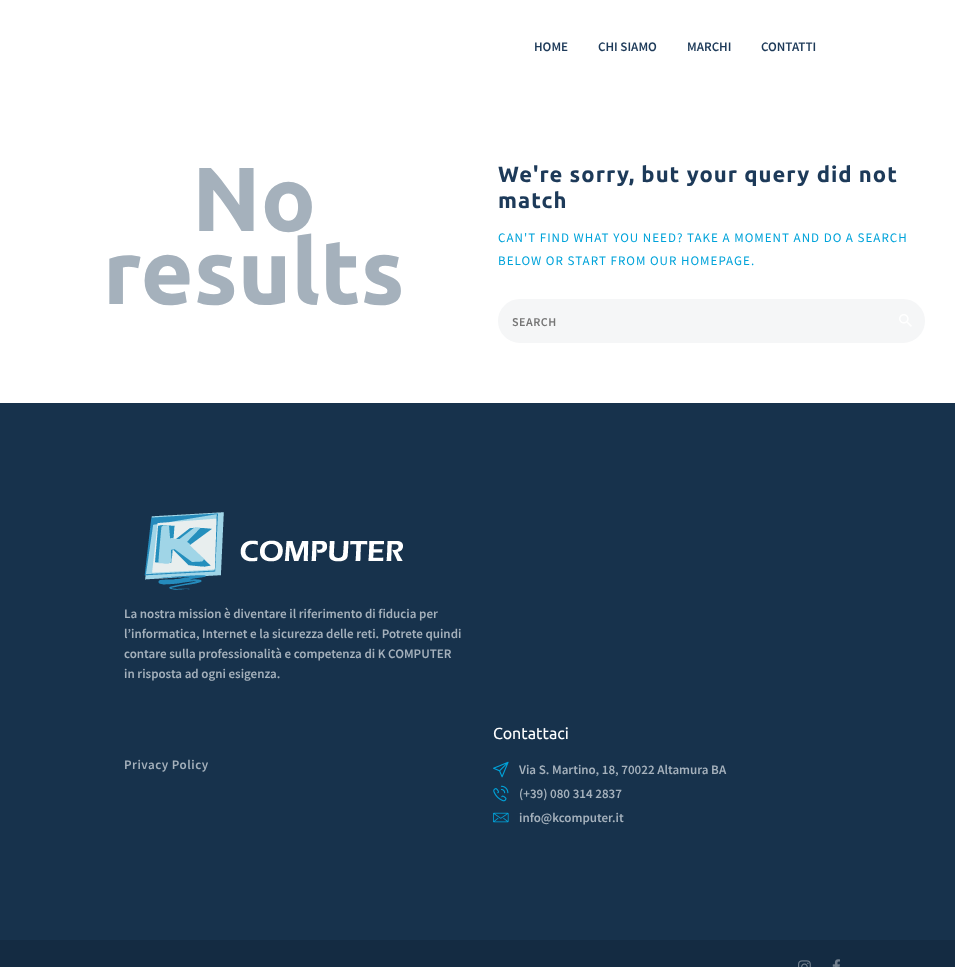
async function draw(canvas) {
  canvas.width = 955
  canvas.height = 967
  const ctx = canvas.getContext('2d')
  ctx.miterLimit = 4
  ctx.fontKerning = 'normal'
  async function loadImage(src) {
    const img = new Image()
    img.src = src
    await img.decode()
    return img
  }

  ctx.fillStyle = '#fff'
  ctx.fillRect(0, 0, 955, 967)
  ctx.font = '600 13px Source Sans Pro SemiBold'
  ctx.fillStyle = '#1d3a59'
  ctx.fillText('HOME', 534, 51)
  ctx.fillText('CHI SIAMO', 598, 51)
  ctx.fillText('MARCHI', 687, 51)
  ctx.fillText('CONTATTI', 761, 51)
  ctx.font = 'bold 91px Ubuntu'
  ctx.fillStyle = '#a5b1bc'
  ctx.fillText('No', 192, 231)
  ctx.fillText('results', 103, 304)
  ctx.letterSpacing = '1px'
  ctx.font = 'bold 22px Ubuntu'
  ctx.fillStyle = '#1d3a59'
  ctx.fillText('We\'re sorry, but your query did not', 498, 182)
  ctx.fillText('match', 498, 208)
  ctx.font = '13px Source Sans Pro'
  ctx.fillStyle = '#00a3da'
  ctx.fillText('CAN\'T FIND WHAT YOU NEED? TAKE A MOMENT AND DO A SEARCH', 498, 242)
  ctx.fillText('BELOW OR START FROM OUR HOMEPAGE.', 498, 265)
  ctx.fillStyle = '#f5f6f7'
  ctx.beginPath()
  ctx.roundRect(499, 300, 425, 42, 21)
  ctx.fill()
  ctx.strokeStyle = '#f5f6f7'
  ctx.lineWidth = 2
  ctx.stroke()
  ctx.letterSpacing = '0.5px'
  ctx.font = '600 12px Source Sans Pro SemiBold'
  ctx.fillStyle = '#757575'
  ctx.fillText('SEARCH', 512, 326)
  ctx.drawImage(await loadImage('image0.png'), 899, 314, 13, 13)
  ctx.fillStyle = '#17324c'
  ctx.fillRect(0, 403, 955, 537)
  ctx.drawImage(await loadImage('image1.png'), 144, 512, 259, 78)
  ctx.letterSpacing = '0px'
  ctx.font = '600 13px Source Sans Pro SemiBold'
  ctx.fillStyle = '#a5b1bc'
  ctx.fillText('La nostra mission è diventare il riferimento di fiducia per', 124, 618)
  ctx.fillText('l’informatica, Internet e la sicurezza delle reti. Potrete quindi', 124, 638)
  ctx.fillText('contare sulla professionalità e competenza di K COMPUTER', 124, 658)
  ctx.fillText('in risposta ad ogni esigenza.', 124, 678)
  ctx.letterSpacing = '0.5px'
  ctx.fillText('Privacy Policy', 124, 769)
  ctx.letterSpacing = '0px'
  ctx.font = '16px Ubuntu'
  ctx.fillStyle = '#fff'
  ctx.fillText('Contattaci', 493, 739)
  ctx.drawImage(await loadImage('image2.png'), 493, 761, 16, 17)
  ctx.font = '600 13px Source Sans Pro SemiBold'
  ctx.fillStyle = '#a5b1bc'
  ctx.fillText('Via S. Martino, 18, 70022 Altamura BA', 519, 774)
  ctx.drawImage(await loadImage('image3.png'), 493, 785, 16, 17)
  ctx.fillText('(+39) 080 314 2837', 519, 798)
  ctx.drawImage(await loadImage('image4.png'), 493, 812, 16, 11)
  ctx.fillText('info@kcomputer.it', 519, 822)
  ctx.fillStyle = '#142b42'
  ctx.fillRect(0, 940, 955, 27)
  ctx.drawImage(await loadImage('image5.png'), 798, 960, 13, 7)
  ctx.drawImage(await loadImage('image6.png'), 832, 959, 8, 8)
}

draw(document.querySelector('canvas'))
